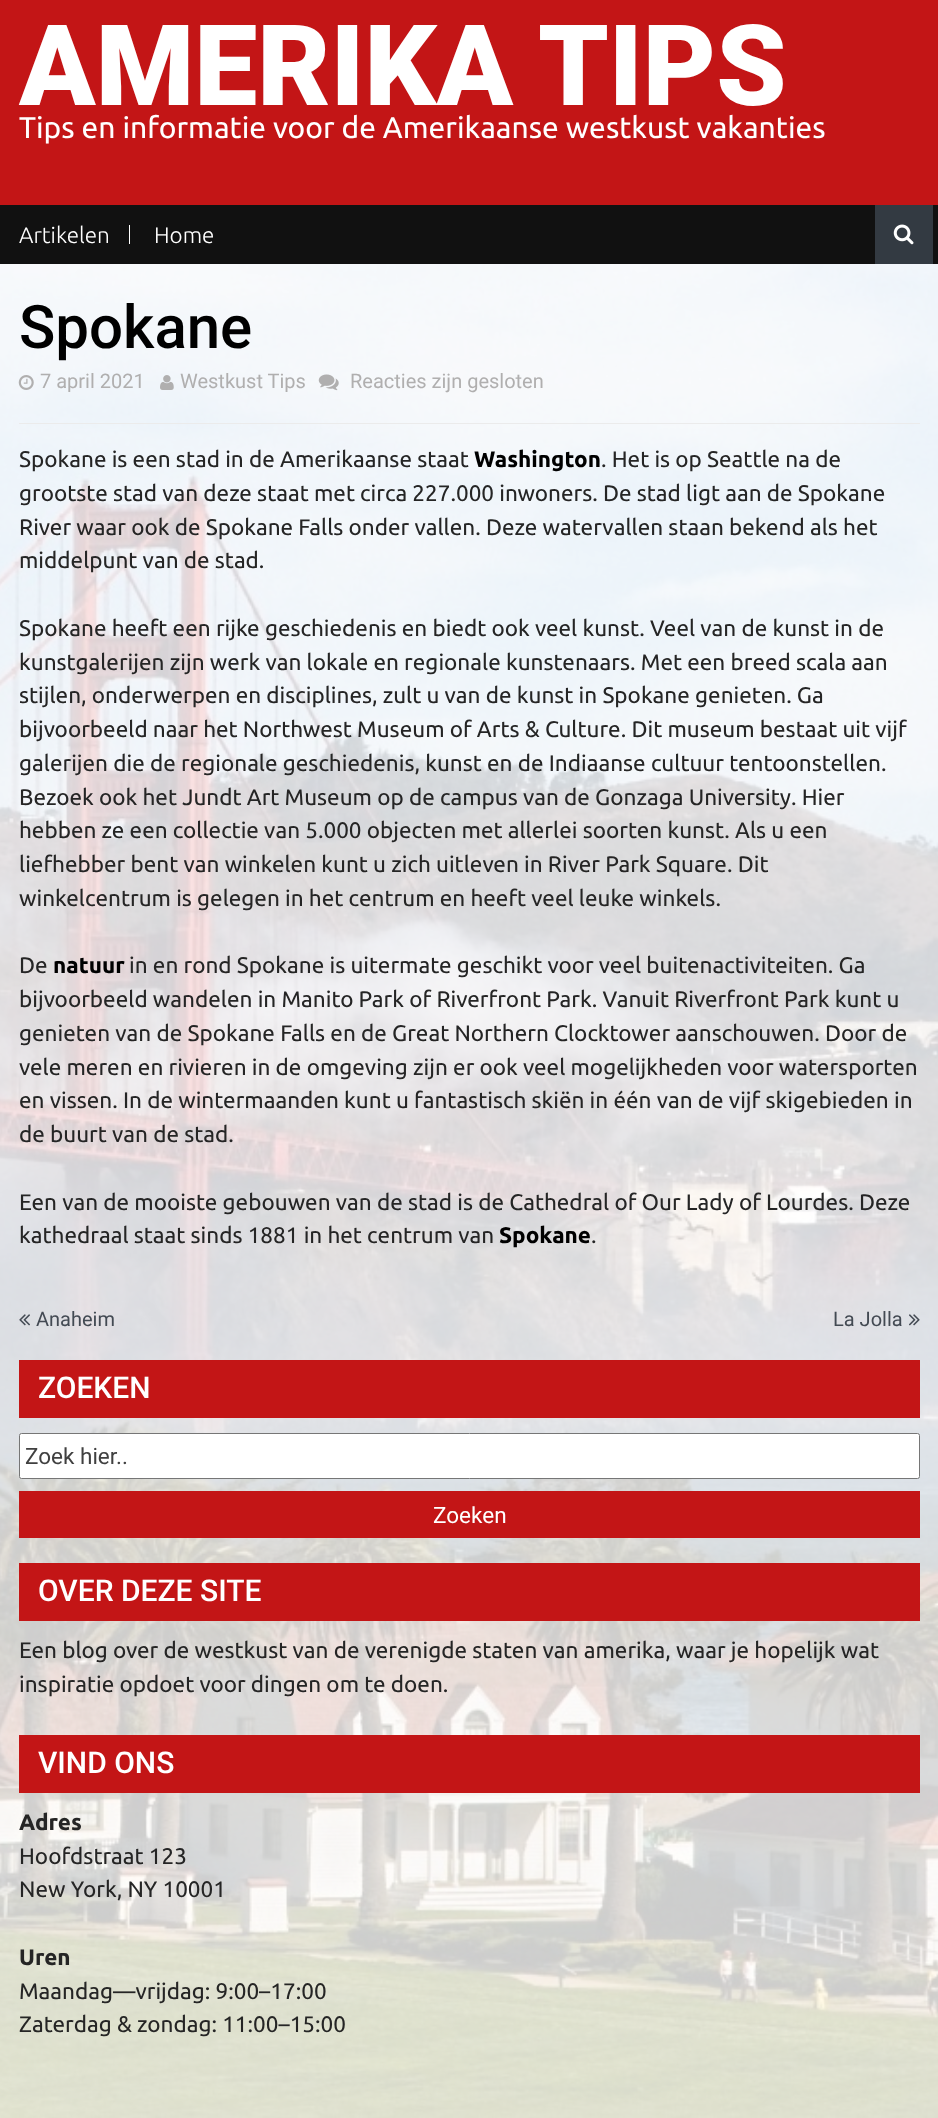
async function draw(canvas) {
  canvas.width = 938
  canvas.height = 2118
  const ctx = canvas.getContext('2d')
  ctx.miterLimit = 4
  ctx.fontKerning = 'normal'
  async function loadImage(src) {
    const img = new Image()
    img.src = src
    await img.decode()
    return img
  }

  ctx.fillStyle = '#fff'
  ctx.fillRect(0, 0, 938, 2118)
  ctx.drawImage(await loadImage('image0.png'), 0, 264, 938, 1854)
  ctx.fillStyle = '#c31516'
  ctx.fillRect(0, 0, 938, 205)
  ctx.font = '900 112.5px Roboto'
  ctx.fillStyle = '#fff'
  ctx.fillText('AMERIKA TIPS', 19, 105)
  ctx.font = '30px Ubuntu'
  ctx.fillText('Tips en informatie voor de Amerikaanse westkust vakanties', 19, 138)
  ctx.fillStyle = '#111'
  ctx.fillRect(0, 205, 938, 59)
  ctx.fillStyle = '#fff'
  ctx.fillRect(129, 225, 1, 19)
  ctx.font = '300 22.5px Ubuntu'
  ctx.fillText('Artikelen', 19, 243)
  ctx.fillText('Home', 154, 243)
  ctx.fillStyle = '#333a42'
  ctx.fillRect(875, 205, 58, 59)
  ctx.drawImage(await loadImage('image1.png'), 893, 224, 21, 21)
  ctx.fillStyle = '#ffffffcc'
  ctx.fillRect(0, 264, 938, 1854)
  ctx.fillStyle = '#ebebeb'
  ctx.fillRect(19, 423, 901, 1)
  ctx.font = '500 60px Roboto'
  ctx.fillStyle = '#000'
  ctx.fillText('Spokane', 19, 348)
  ctx.drawImage(await loadImage('image2.png'), 18, 375, 16, 15)
  ctx.font = '20px Roboto'
  ctx.fillStyle = '#b0afaf'
  ctx.fillText('7 april 2021', 40, 388)
  ctx.drawImage(await loadImage('image3.png'), 160, 375, 14, 15)
  ctx.fillText('Westkust Tips', 180, 388)
  ctx.drawImage(await loadImage('image4.png'), 318, 374, 21, 17)
  ctx.fillText('Reacties zijn gesloten', 350, 388)
  ctx.font = '22.5px Ubuntu'
  ctx.fillStyle = '#252525'
  ctx.fillText('Spokane is een stad in de Amerikaanse staat', 19, 467)
  ctx.font = 'bold 22.5px Ubuntu'
  ctx.fillStyle = '#000'
  ctx.fillText('Washington', 474, 467)
  ctx.font = '22.5px Ubuntu'
  ctx.fillStyle = '#252525'
  ctx.fillText('. Het is op Seattle na de', 601, 467)
  ctx.fillText('grootste stad van deze staat met circa 227.000 inwoners. De stad ligt aan de Spokane', 19, 501)
  ctx.fillText('River waar ook de Spokane Falls onder vallen. Deze watervallen staan bekend als het', 19, 535)
  ctx.fillText('middelpunt van de stad.', 19, 568)
  ctx.fillText('Spokane heeft een rijke geschiedenis en biedt ook veel kunst. Veel van de kunst in de', 19, 636)
  ctx.fillText('kunstgalerijen zijn werk van lokale en regionale kunstenaars. Met een breed scala aan', 19, 670)
  ctx.fillText('stijlen, onderwerpen en disciplines, zult u van de kunst in Spokane genieten. Ga', 19, 703)
  ctx.fillText('bijvoorbeeld naar het Northwest Museum of Arts & Culture. Dit museum bestaat uit vijf', 19, 737)
  ctx.fillText('galerijen die de regionale geschiedenis, kunst en de Indiaanse cultuur tentoonstellen.', 19, 771)
  ctx.fillText('Bezoek ook het Jundt Art Museum op de campus van de Gonzaga University. Hier', 19, 805)
  ctx.fillText('hebben ze een collectie van 5.000 objecten met allerlei soorten kunst. Als u een', 19, 838)
  ctx.fillText('liefhebber bent van winkelen kunt u zich uitleven in River Park Square. Dit', 19, 872)
  ctx.fillText('winkelcentrum is gelegen in het centrum en heeft veel leuke winkels.', 19, 906)
  ctx.fillText('De', 19, 973)
  ctx.font = 'bold 22.5px Ubuntu'
  ctx.fillStyle = '#000'
  ctx.fillText('natuur', 53, 973)
  ctx.font = '22.5px Ubuntu'
  ctx.fillStyle = '#252525'
  ctx.fillText('in en rond Spokane is uitermate geschikt voor veel buitenactiviteiten. Ga', 129, 973)
  ctx.fillText('bijvoorbeeld wandelen in Manito Park of Riverfront Park. Vanuit Riverfront Park kunt u', 19, 1007)
  ctx.fillText('genieten van de Spokane Falls en de Great Northern Clocktower aanschouwen. Door de', 19, 1041)
  ctx.fillText('vele meren en rivieren in de omgeving zijn er ook veel mogelijkheden voor watersporten', 19, 1075)
  ctx.fillText('en vissen. In de wintermaanden kunt u fantastisch skiën in één van de vijf skigebieden in', 19, 1108)
  ctx.fillText('de buurt van de stad.', 19, 1142)
  ctx.fillText('Een van de mooiste gebouwen van de stad is de Cathedral of Our Lady of Lourdes. Deze', 19, 1210)
  ctx.fillText('kathedraal staat sinds 1881 in het centrum van', 19, 1243)
  ctx.font = 'bold 22.5px Ubuntu'
  ctx.fillStyle = '#000'
  ctx.fillText('Spokane', 499, 1243)
  ctx.font = '22.5px Ubuntu'
  ctx.fillStyle = '#252525'
  ctx.fillText('.', 591, 1243)
  ctx.drawImage(await loadImage('image5.png'), 19, 1314, 11, 12)
  ctx.font = '20px Roboto'
  ctx.fillStyle = '#434a53'
  ctx.fillText('Anaheim', 36, 1326)
  ctx.fillText('La Jolla', 833, 1326)
  ctx.drawImage(await loadImage('image6.png'), 909, 1314, 11, 12)
  ctx.fillStyle = '#c31516'
  ctx.fillRect(19, 1360, 901, 58)
  ctx.font = '500 30px Roboto'
  ctx.fillStyle = '#fff'
  ctx.fillText('ZOEKEN', 38, 1398)
  ctx.beginPath()
  ctx.roundRect(19.5, 1433.5, 900, 45, 2)
  ctx.fill()
  ctx.strokeStyle = '#767676'
  ctx.stroke()
  ctx.font = '22.5px Roboto'
  ctx.fillStyle = '#404040'
  ctx.fillText('Zoek hier..', 25, 1464)
  ctx.fillStyle = '#c31516'
  ctx.fillRect(19, 1491, 901, 47)
  ctx.fillStyle = '#fff'
  ctx.fillText('Zoeken', 433, 1523)
  ctx.fillStyle = '#c31516'
  ctx.fillRect(19, 1563, 901, 58)
  ctx.font = '500 30px Roboto'
  ctx.fillStyle = '#fff'
  ctx.fillText('OVER DEZE SITE', 38, 1601)
  ctx.font = '22.5px Ubuntu'
  ctx.fillStyle = '#252525'
  ctx.fillText('Een blog over de westkust van de verenigde staten van amerika, waar je hopelijk wat', 19, 1658)
  ctx.fillText('inspiratie opdoet voor dingen om te doen.', 19, 1692)
  ctx.fillStyle = '#c31516'
  ctx.fillRect(19, 1735, 901, 58)
  ctx.font = '500 30px Roboto'
  ctx.fillStyle = '#fff'
  ctx.fillText('VIND ONS', 38, 1773)
  ctx.font = 'bold 22.5px Ubuntu'
  ctx.fillStyle = '#252525'
  ctx.fillText('Adres', 19, 1830)
  ctx.font = '22.5px Ubuntu'
  ctx.fillText('Hoofdstraat 123', 19, 1864)
  ctx.fillText('New York, NY 10001', 19, 1897)
  ctx.font = 'bold 22.5px Ubuntu'
  ctx.fillText('Uren', 19, 1965)
  ctx.font = '22.5px Ubuntu'
  ctx.fillText('Maandag—vrijdag: 9:00–17:00', 19, 1999)
  ctx.fillText('Zaterdag & zondag: 11:00–15:00', 19, 2032)
}

draw(document.querySelector('canvas'))
